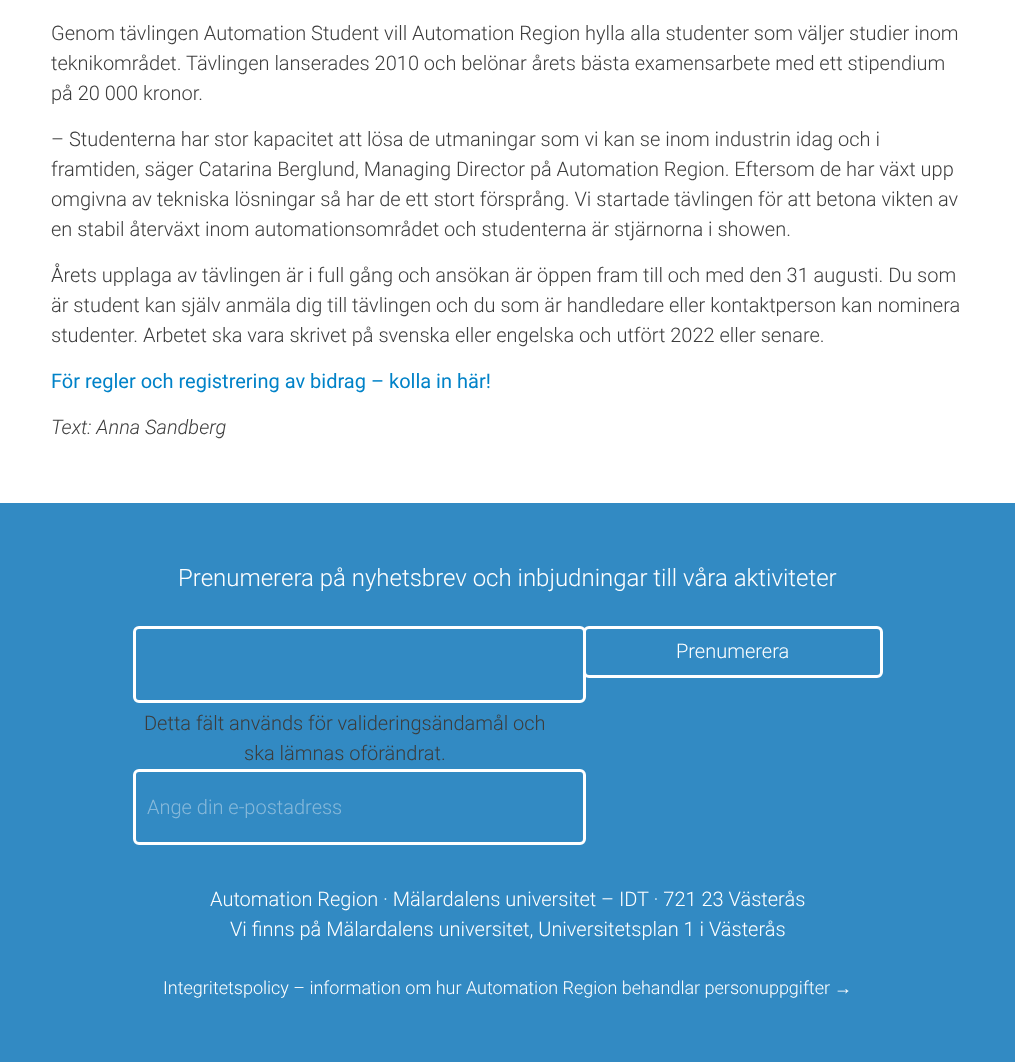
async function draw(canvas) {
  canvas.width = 1015
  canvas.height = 1062
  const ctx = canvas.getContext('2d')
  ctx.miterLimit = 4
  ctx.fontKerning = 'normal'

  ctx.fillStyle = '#fff'
  ctx.fillRect(0, 0, 1015, 1062)
  ctx.font = '300 20px Roboto'
  ctx.fillStyle = '#3c3c3c'
  ctx.fillText('Genom tävlingen Automation Student vill Automation Region hylla alla studenter som väljer studier inom', 51, 40)
  ctx.fillText('teknikområdet. Tävlingen lanserades 2010 och belönar årets bästa examensarbete med ett stipendium', 51, 70)
  ctx.fillText('på 20 000 kronor.', 51, 100)
  ctx.fillText('– Studenterna har stor kapacitet att lösa de utmaningar som vi kan se inom industrin idag och i', 51, 146)
  ctx.fillText('framtiden, säger Catarina Berglund, Managing Director på Automation Region. Eftersom de har växt upp', 51, 176)
  ctx.fillText('omgivna av tekniska lösningar så har de ett stort försprång. Vi startade tävlingen för att betona vikten av', 51, 206)
  ctx.fillText('en stabil återväxt inom automationsområdet och studenterna är stjärnorna i showen.', 51, 236)
  ctx.fillText('Årets upplaga av tävlingen är i full gång och ansökan är öppen fram till och med den 31 augusti. Du som', 51, 282)
  ctx.fillText('är student kan själv anmäla dig till tävlingen och du som är handledare eller kontaktperson kan nominera', 51, 312)
  ctx.fillText('studenter. Arbetet ska vara skrivet på svenska eller engelska och utfört 2022 eller senare.', 51, 342)
  ctx.font = '20px Roboto'
  ctx.fillStyle = '#0082c8'
  ctx.fillText('För regler och registrering av bidrag – kolla in här!', 51, 388)
  ctx.font = 'italic 300 20px Roboto'
  ctx.fillStyle = '#3c3c3c'
  ctx.fillText('Text: Anna Sandberg', 51, 434)
  ctx.fillStyle = '#328ac3'
  ctx.fillRect(0, 503, 1015, 559)
  ctx.font = '300 24px Roboto'
  ctx.fillStyle = '#fff'
  ctx.fillText('Prenumerera på nyhetsbrev och inbjudningar till våra aktiviteter', 178, 586)
  ctx.beginPath()
  ctx.roundRect(134.5, 627.5, 450, 74, 4.5)
  ctx.strokeStyle = '#fff'
  ctx.lineWidth = 3
  ctx.stroke()
  ctx.beginPath()
  ctx.roundRect(584.5, 627.5, 297, 49, 4.5)
  ctx.stroke()
  ctx.font = '300 20px Roboto'
  ctx.fillText('Prenumerera', 676, 658)
  ctx.fillStyle = '#3c3c3c'
  ctx.fillText('Detta fält används för valideringsändamål och', 144, 730)
  ctx.fillText('ska lämnas oförändrat.', 244, 760)
  ctx.beginPath()
  ctx.roundRect(134.5, 770.5, 450, 73, 4.5)
  ctx.stroke()
  ctx.fillStyle = '#87b9da'
  ctx.fillText('Ange din e-postadress', 147, 814)
  ctx.fillStyle = '#fff'
  ctx.fillText('Automation Region · Mälardalens universitet – IDT · 721 23 Västerås', 210, 906)
  ctx.fillText('Vi finns på Mälardalens universitet, Universitetsplan 1 i Västerås', 230, 936)
  ctx.font = '300 18px Roboto'
  ctx.fillText('Integritetspolicy – information om hur Automation Region behandlar personuppgifter', 163, 994)
  ctx.font = '18px Liberation Sans'
  ctx.fillText('→', 834, 994)
}

draw(document.querySelector('canvas'))
